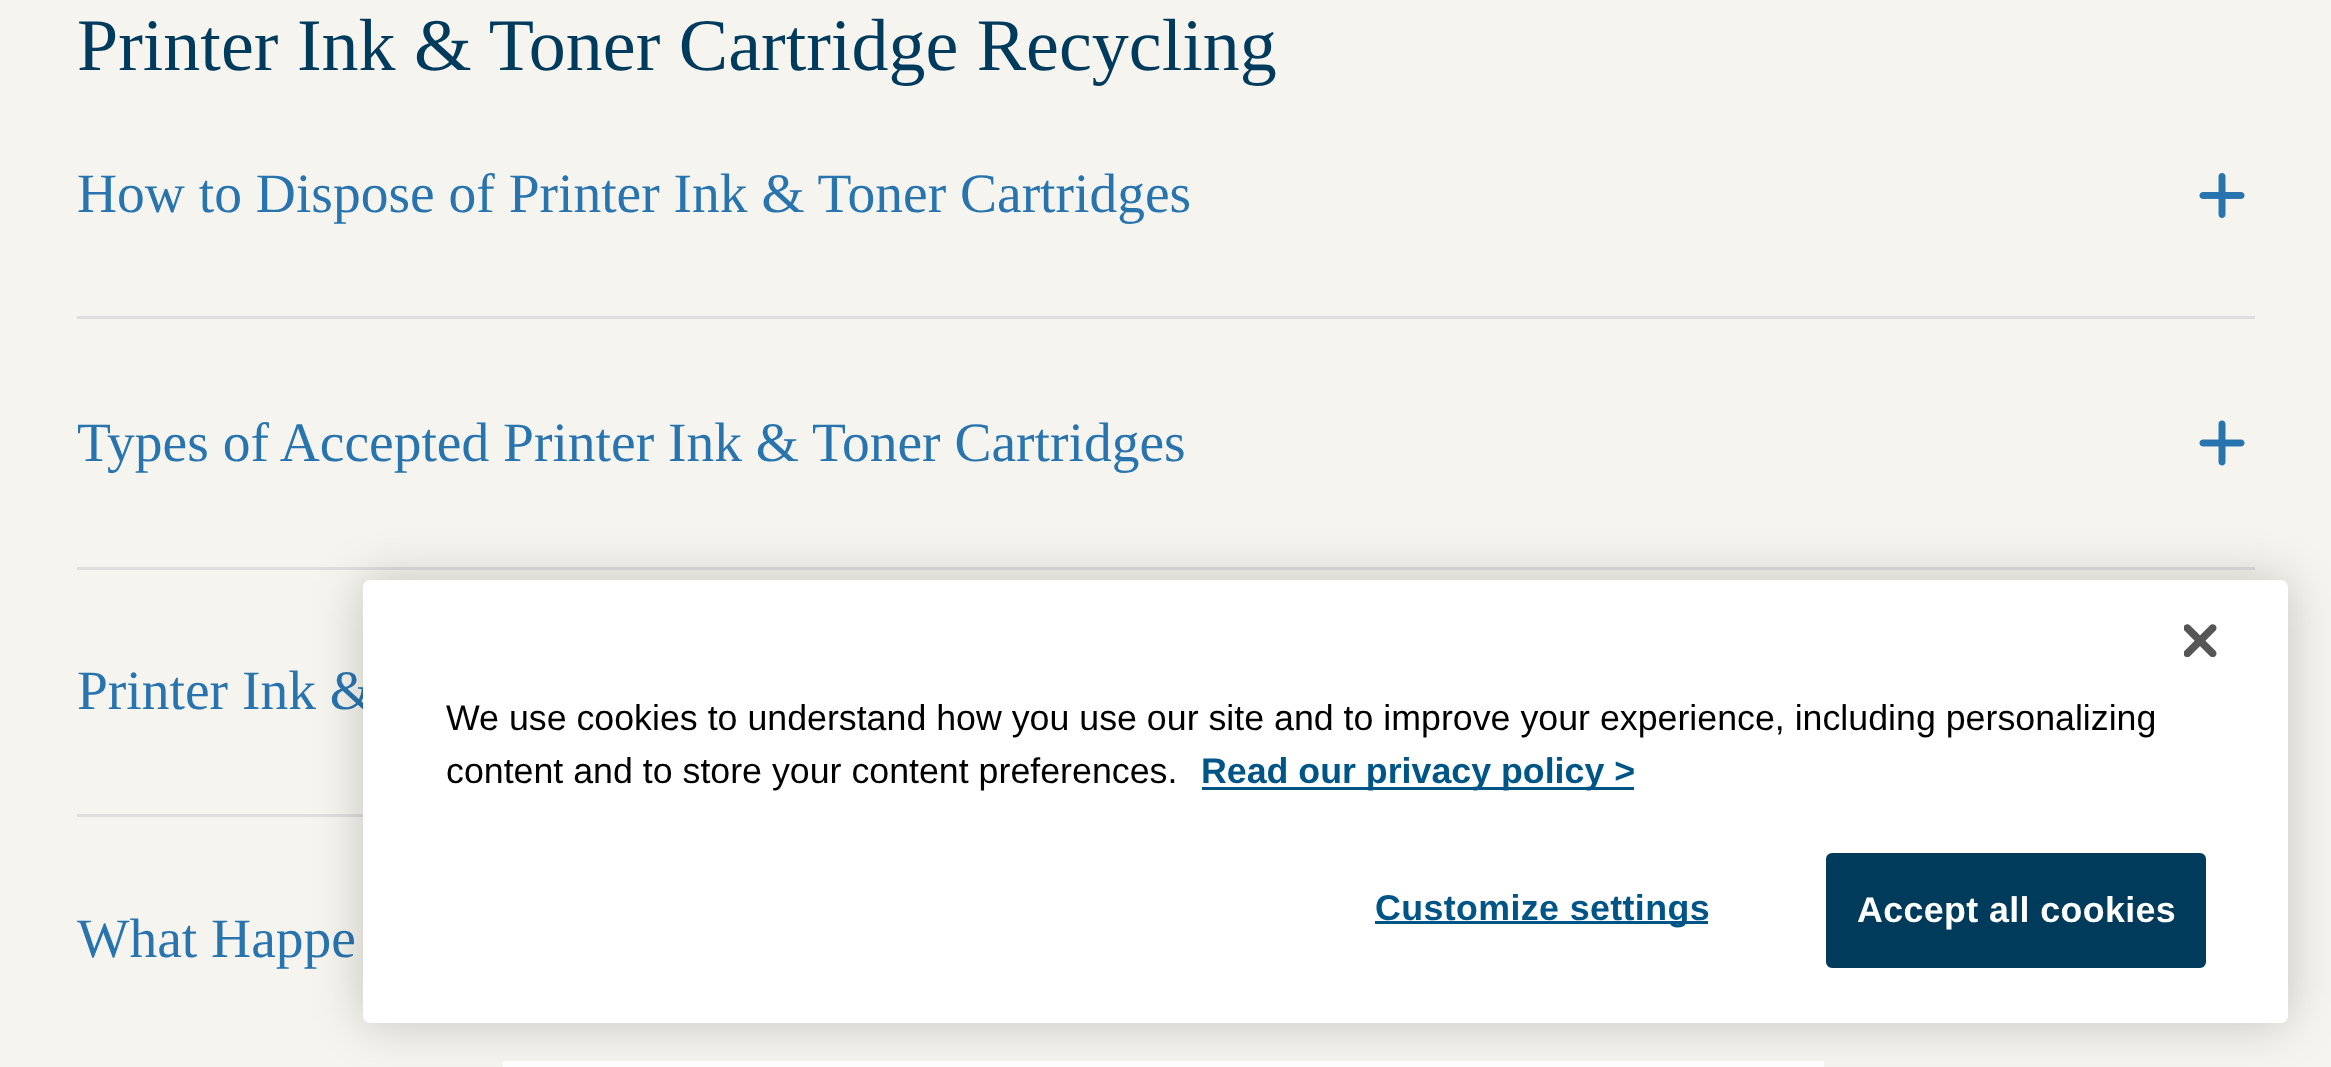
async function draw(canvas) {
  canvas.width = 2331
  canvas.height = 1067
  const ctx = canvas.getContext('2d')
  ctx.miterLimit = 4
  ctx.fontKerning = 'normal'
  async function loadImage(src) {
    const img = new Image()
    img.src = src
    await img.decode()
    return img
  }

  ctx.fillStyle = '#f6f4ee'
  ctx.fillRect(0, 0, 2331, 1067)
  ctx.font = '74px Liberation Serif'
  ctx.fillStyle = '#003a5c'
  ctx.fillText('Printer Ink & Toner Cartridge Recycling', 77, 70)
  ctx.font = '55.5px Liberation Serif'
  ctx.fillStyle = '#2874af'
  ctx.fillText('How to Dispose of Printer Ink & Toner Cartridges', 77, 212)
  ctx.drawImage(await loadImage('image0.png'), 2199, 173, 46, 45)
  ctx.fillStyle = '#dedede'
  ctx.fillRect(77, 316, 2178, 3)
  ctx.fillStyle = '#2874af'
  ctx.fillText('Types of Accepted Printer Ink & Toner Cartridges', 77, 461)
  ctx.drawImage(await loadImage('image1.png'), 2199, 420, 46, 46)
  ctx.fillStyle = '#dedede'
  ctx.fillRect(77, 567, 2178, 3)
  ctx.fillStyle = '#2874af'
  ctx.fillText('Printer Ink &', 77, 709)
  ctx.fillStyle = '#dedede'
  ctx.fillRect(77, 814, 286, 3)
  ctx.fillStyle = '#2874af'
  ctx.fillText('What Happe', 77, 957)
  ctx.fillStyle = '#fff'
  ctx.fillRect(503, 1061, 1321, 6)
  ctx.fillStyle = '#00000033'
  ctx.filter = 'blur(25px)'
  ctx.beginPath()
  ctx.roundRect(363, 580, 1925, 443, 7)
  ctx.fill()
  ctx.filter = 'none'
  ctx.fillStyle = '#fff'
  ctx.beginPath()
  ctx.roundRect(363, 580, 1925, 443, 7)
  ctx.fill()
  ctx.drawImage(await loadImage('image2.png'), 2184, 624, 33, 33)
  ctx.font = '35.75px Liberation Sans'
  ctx.fillStyle = '#000'
  ctx.fillText('We use cookies to understand how you use our site and to improve your experience, including personalizing', 446, 730)
  ctx.fillText('content and to store your content preferences.', 446, 783)
  ctx.fillStyle = '#005587'
  ctx.fillRect(1202, 787, 432, 3)
  ctx.font = 'bold 35.75px Liberation Sans'
  ctx.fillText('Read our privacy policy >', 1201, 783)
  ctx.fillRect(1375, 921, 333, 3)
  ctx.letterSpacing = '0.4px'
  ctx.fillText('Customize settings', 1375, 920)
  ctx.fillStyle = '#003b5c'
  ctx.beginPath()
  ctx.roundRect(1827.5, 854.5, 377, 112, 4.5)
  ctx.fill()
  ctx.strokeStyle = '#003b5c'
  ctx.lineWidth = 3
  ctx.stroke()
  ctx.fillStyle = '#fff'
  ctx.fillText('Accept all cookies', 1857, 922)
}

draw(document.querySelector('canvas'))
